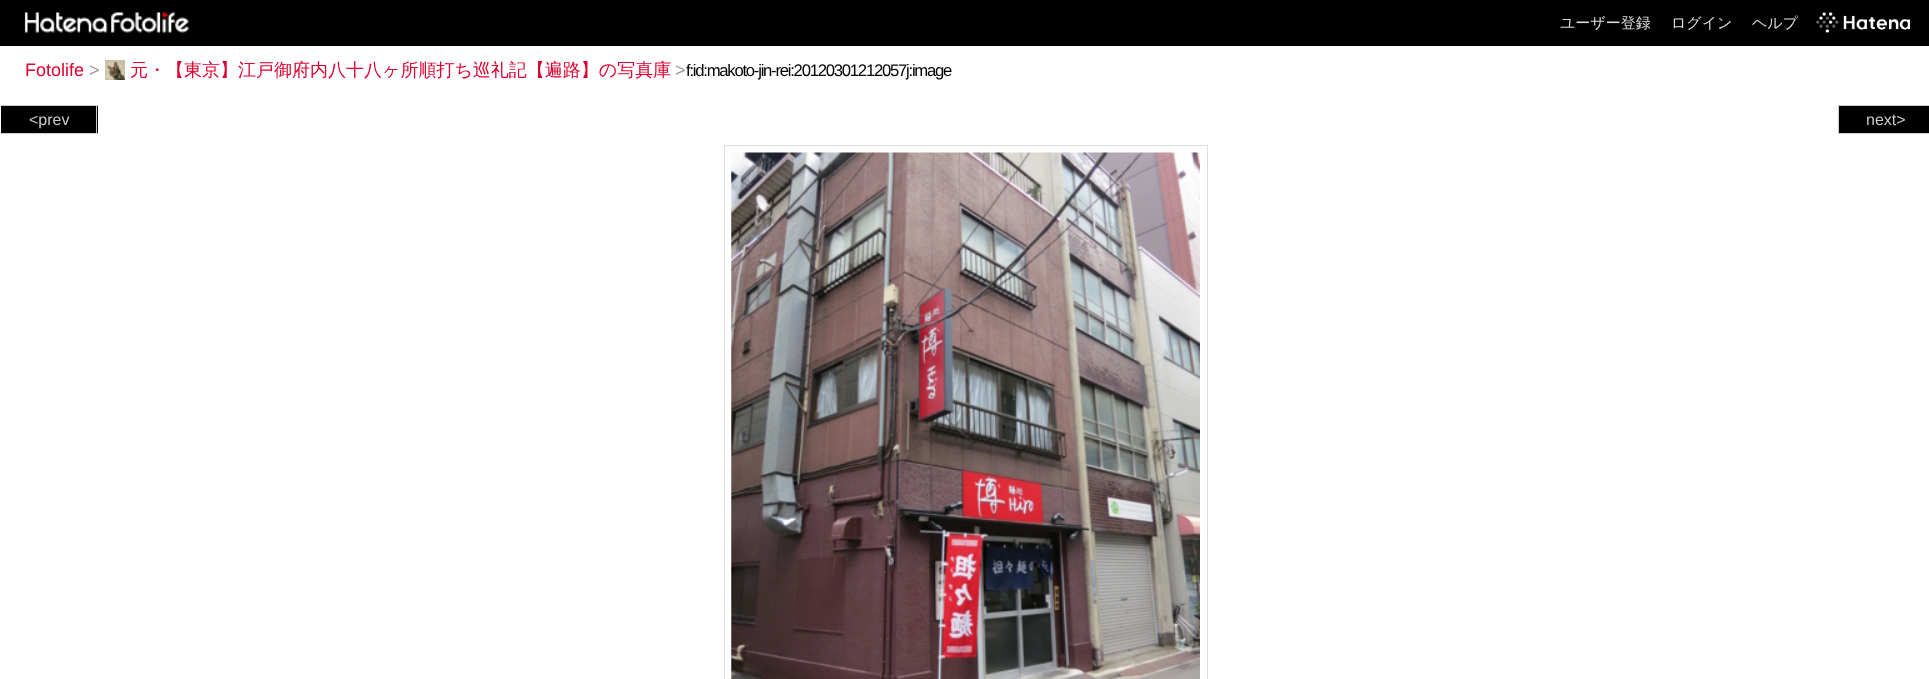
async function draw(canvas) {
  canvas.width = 1929
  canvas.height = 679
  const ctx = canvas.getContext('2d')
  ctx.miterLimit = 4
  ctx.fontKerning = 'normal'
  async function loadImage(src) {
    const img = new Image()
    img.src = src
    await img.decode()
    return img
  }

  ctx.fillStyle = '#fff'
  ctx.fillRect(0, 0, 1929, 679)
  ctx.fillStyle = '#000'
  ctx.fillRect(0, 0, 1929, 46)
  ctx.drawImage(await loadImage('image0.png'), 24, 12, 84, 21)
  ctx.drawImage(await loadImage('image1.png'), 111, 12, 78, 21)
  ctx.font = '500 15px WenQuanYi Zen Hei'
  ctx.fillStyle = '#ddd'
  ctx.fillText('ユーザー登録', 1560, 28)
  ctx.fillText('ログイン', 1671, 28)
  ctx.fillText('ヘルプ', 1752, 28)
  ctx.drawImage(await loadImage('image2.png'), 1816, 12, 94, 21)
  ctx.font = '18px Liberation Sans'
  ctx.fillStyle = '#de002f'
  ctx.fillText('Fotolife', 25, 76)
  ctx.fillStyle = '#999'
  ctx.fillText('>', 89, 76)
  ctx.drawImage(await loadImage('image3.png'), 105, 60, 20, 20)
  ctx.font = '500 18px WenQuanYi Zen Hei'
  ctx.fillStyle = '#de002f'
  ctx.fillText('元・【東京】江戸御府内八十八ヶ所順打ち巡礼記【遍路】の写真庫', 130, 76)
  ctx.font = '18px Liberation Sans'
  ctx.fillStyle = '#999'
  ctx.fillText('>', 675, 76)
  ctx.letterSpacing = '-1.25px'
  ctx.font = '16.7px Liberation Sans'
  ctx.fillStyle = '#000'
  ctx.fillText('f:id:makoto-jin-rei:20120301212057j:image', 686, 76)
  ctx.fillRect(1, 106, 97, 27)
  ctx.fillStyle = '#ccc'
  ctx.fillRect(1, 105, 97, 1)
  ctx.fillRect(96, 105, 1, 29)
  ctx.fillRect(1, 133, 97, 1)
  ctx.letterSpacing = '0px'
  ctx.font = '16px Liberation Sans'
  ctx.fillText('<prev', 29, 125)
  ctx.fillStyle = '#000'
  ctx.fillRect(1839, 106, 90, 27)
  ctx.fillStyle = '#ccc'
  ctx.fillRect(1838, 105, 91, 1)
  ctx.fillRect(1838, 133, 91, 1)
  ctx.fillRect(1838, 105, 1, 29)
  ctx.fillText('next>', 1866, 125)
  ctx.strokeStyle = '#dedede'
  ctx.strokeRect(724.5, 145.5, 483, 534)
  ctx.drawImage(await loadImage('image4.png'), 731, 152, 469, 527)
}

draw(document.querySelector('canvas'))
